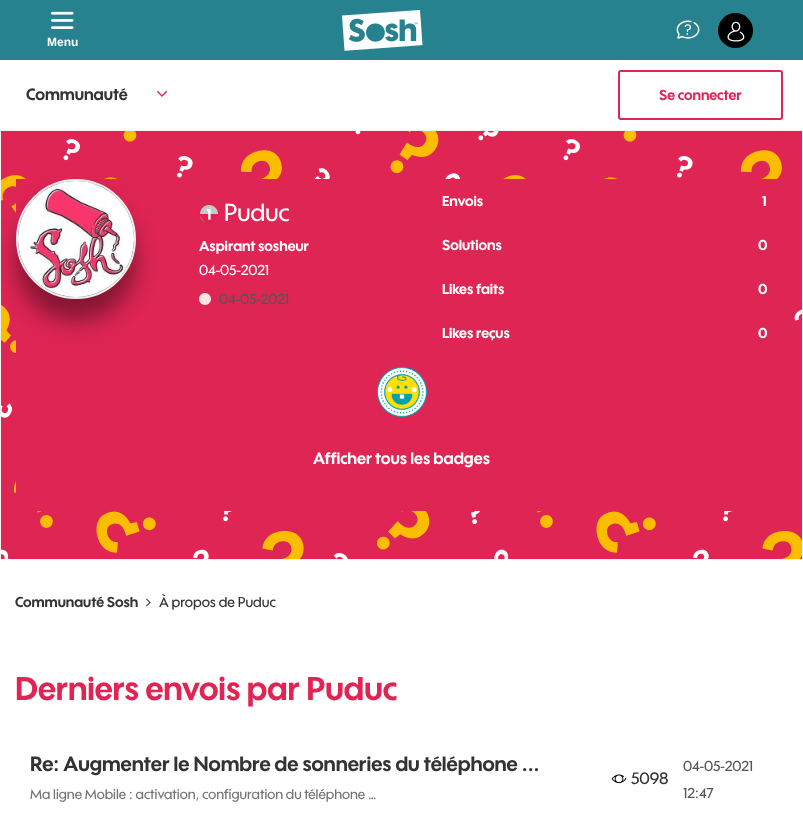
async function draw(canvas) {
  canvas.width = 803
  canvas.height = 838
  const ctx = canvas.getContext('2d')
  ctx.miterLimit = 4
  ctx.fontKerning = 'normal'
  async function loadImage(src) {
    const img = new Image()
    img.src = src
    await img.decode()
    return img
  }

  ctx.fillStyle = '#fff'
  ctx.fillRect(0, 0, 803, 838)
  ctx.fillStyle = '#26828e'
  ctx.fillRect(0, 0, 803, 60)
  ctx.drawImage(await loadImage('image0.png'), 51, 11, 23, 18)
  ctx.font = 'bold 12px Liberation Sans'
  ctx.fillStyle = '#fff'
  ctx.fillText('Menu', 47, 46)
  ctx.drawImage(await loadImage('image1.png'), 342, 9, 81, 42)
  ctx.drawImage(await loadImage('image2.png'), 676, 20, 24, 19)
  ctx.fillStyle = '#000'
  ctx.beginPath()
  ctx.arc(735.5, 30.5, 17.5, 0, 2 * Math.PI)
  ctx.fill()
  ctx.drawImage(await loadImage('image3.png'), 727, 21, 18, 21)
  ctx.font = 'bold 16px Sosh'
  ctx.fillStyle = '#333'
  ctx.fillText('Communauté', 26, 100)
  ctx.drawImage(await loadImage('image4.png'), 157, 90, 10, 7)
  ctx.beginPath()
  ctx.roundRect(619, 71, 163, 48, 2)
  ctx.strokeStyle = '#de2554'
  ctx.lineWidth = 2
  ctx.stroke()
  ctx.font = 'bold 14px Sosh'
  ctx.fillStyle = '#de2554'
  ctx.fillText('Se connecter', 659, 100)
  ctx.drawImage(await loadImage('image5.png'), 1, 131, 801, 428)
  ctx.strokeStyle = '#f1f1f1'
  ctx.lineWidth = 1
  ctx.strokeRect(0.5, 130.5, 802, 429)
  ctx.fillRect(16, 179, 769, 332)
  ctx.fillStyle = '#00000066'
  ctx.filter = 'blur(11px)'
  ctx.beginPath()
  ctx.roundRect(16, 201, 120, 120, 60)
  ctx.fill()
  ctx.filter = 'none'
  ctx.fillStyle = '#5d5d5d'
  ctx.beginPath()
  ctx.arc(76, 239, 59, 0, 2 * Math.PI)
  ctx.fill()
  ctx.strokeStyle = '#eee'
  ctx.lineWidth = 2
  ctx.stroke()
  ctx.drawImage(await loadImage('image6.png'), 18, 181, 116, 116)
  ctx.drawImage(await loadImage('image7.png'), 199, 204, 20, 20)
  ctx.font = '500 24px Sosh'
  ctx.fillStyle = '#fff'
  ctx.fillText('Puduc', 224, 221)
  ctx.font = 'bold 14px Sosh'
  ctx.fillText('Aspirant sosheur', 199, 251)
  ctx.font = '500 14px Sosh'
  ctx.fillText('04-05-2021', 199, 275)
  ctx.drawImage(await loadImage('image8.png'), 199, 293, 12, 12)
  ctx.fillStyle = '#555'
  ctx.fillText('04-05-2021', 219, 304)
  ctx.font = 'bold 14px Sosh'
  ctx.fillStyle = '#fff'
  ctx.fillText('Envois', 442, 206)
  ctx.fillText('1', 762, 206)
  ctx.fillText('Solutions', 442, 250)
  ctx.fillText('0', 758, 250)
  ctx.fillText('Likes faits', 442, 294)
  ctx.fillText('0', 758, 294)
  ctx.fillText('Likes reçus', 442, 338)
  ctx.fillText('0', 758, 338)
  ctx.drawImage(await loadImage('image9.png'), 377, 367, 50, 50)
  ctx.font = 'bold 16px Sosh'
  ctx.fillText('Afficher tous les badges', 313, 464)
  ctx.font = 'bold 14px Sosh'
  ctx.fillStyle = '#333'
  ctx.fillText('Communauté Sosh', 15, 607)
  ctx.drawImage(await loadImage('image10.png'), 146, 598, 5, 9)
  ctx.font = '500 14px Sosh'
  ctx.fillText('À propos de Puduc', 159, 607)
  ctx.font = 'bold 32px Sosh'
  ctx.fillStyle = '#de2554'
  ctx.fillText('Derniers envois par Puduc', 15, 700)
  ctx.font = 'bold 20px Sosh'
  ctx.fillStyle = '#333'
  ctx.fillText('Re: Augmenter le Nombre de sonneries du téléphone ...', 30, 771)
  ctx.font = '500 13.6px Sosh'
  ctx.fillStyle = '#747474'
  ctx.fillText('Ma ligne Mobile : activation, configuration du téléphone …', 30, 799)
  ctx.drawImage(await loadImage('image11.png'), 611, 774, 16, 10)
  ctx.font = '500 16px Sosh'
  ctx.fillStyle = '#333'
  ctx.fillText('5098', 631, 784)
  ctx.font = '500 14px Sosh'
  ctx.fillStyle = '#555'
  ctx.fillText('04-05-2021', 683, 771)
  ctx.fillText('12:47', 683, 798)
}

draw(document.querySelector('canvas'))
